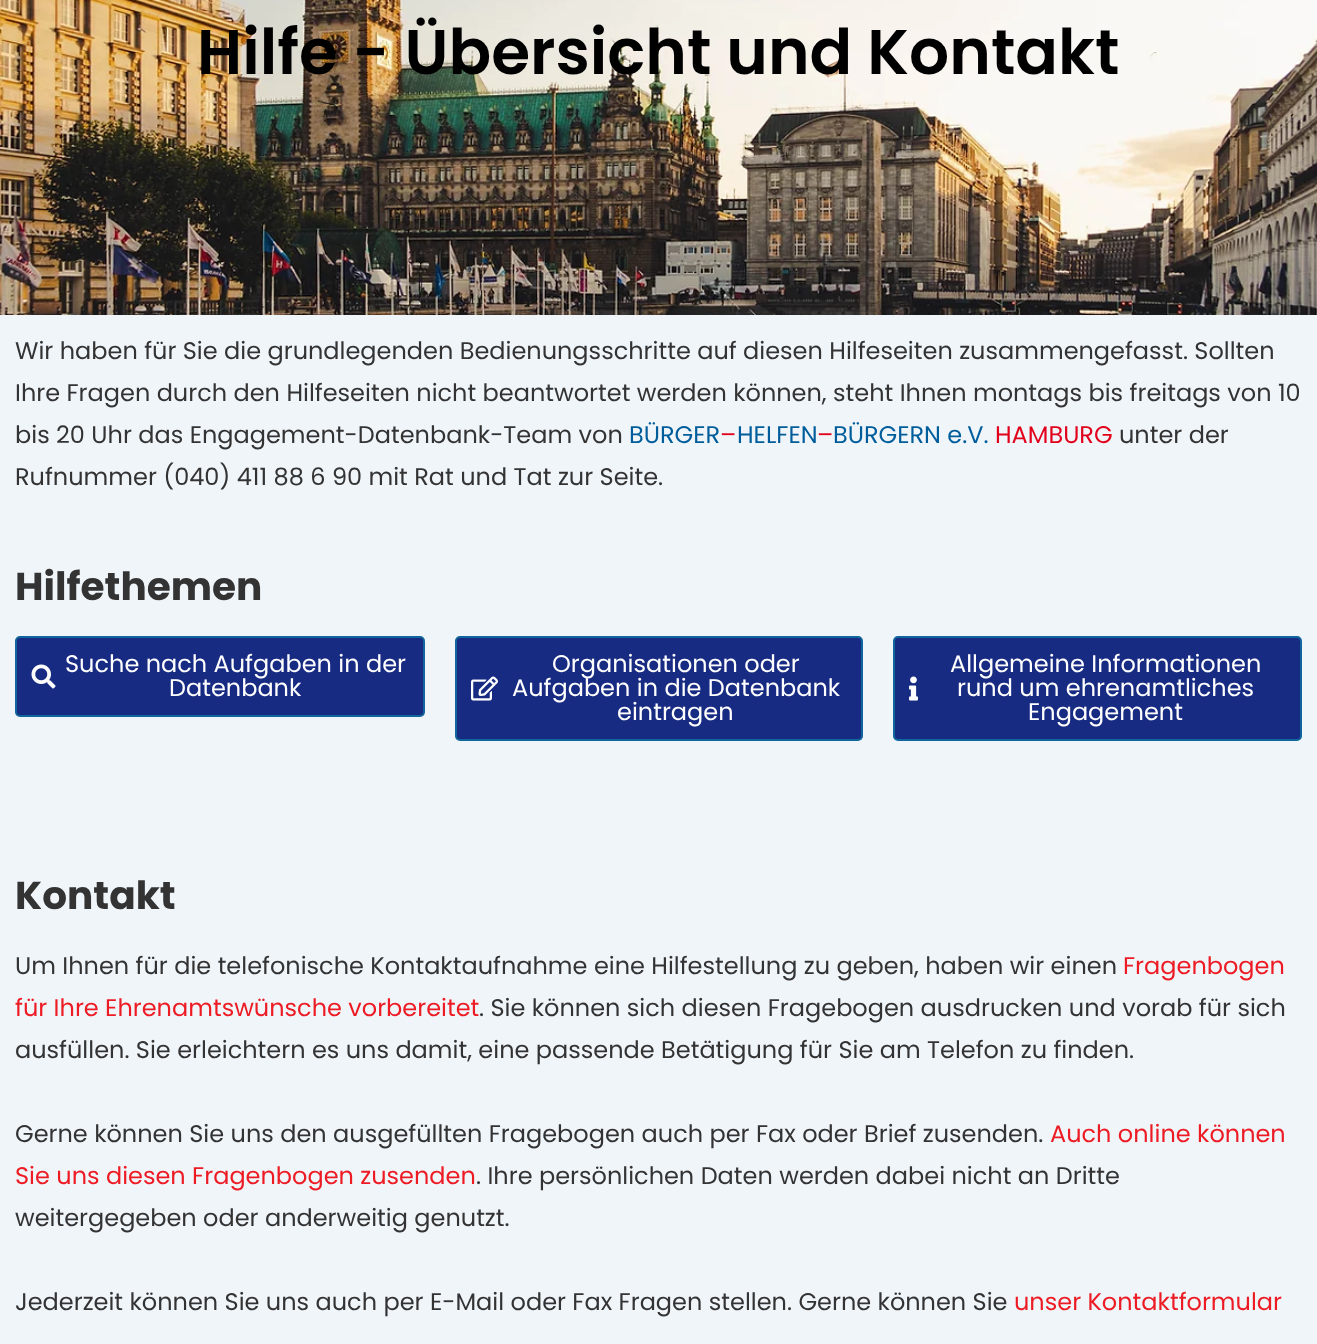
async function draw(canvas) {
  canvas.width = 1317
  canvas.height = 1344
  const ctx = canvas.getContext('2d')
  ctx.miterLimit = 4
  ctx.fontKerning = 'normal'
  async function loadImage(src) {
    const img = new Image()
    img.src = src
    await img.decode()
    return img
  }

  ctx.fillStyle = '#f0f5fa'
  ctx.fillRect(0, 0, 1317, 1344)
  ctx.drawImage(await loadImage('image0.png'), 0, 0, 1317, 315)
  ctx.font = '600 63px Poppins'
  ctx.fillStyle = '#000'
  ctx.fillText('Hilfe - Übersicht und Kontakt', 197, 74)
  ctx.font = '24px Poppins'
  ctx.fillStyle = '#333'
  ctx.fillText('Wir haben für Sie die grundlegenden Bedienungsschritte auf diesen Hilfeseiten zusammengefasst. Sollten', 15, 359)
  ctx.fillText('Ihre Fragen durch den Hilfeseiten nicht beantwortet werden können, steht Ihnen montags bis freitags von 10', 15, 401)
  ctx.fillText('bis 20 Uhr das Engagement-Datenbank-Team von', 15, 443)
  ctx.fillStyle = '#005d9b'
  ctx.fillText('BÜRGER', 629, 443)
  ctx.fillStyle = '#e1011b'
  ctx.fillText('–', 720, 443)
  ctx.fillStyle = '#005d9b'
  ctx.fillText('HELFEN', 737, 443)
  ctx.fillStyle = '#e1011b'
  ctx.fillText('–', 817, 443)
  ctx.fillStyle = '#005d9b'
  ctx.fillText('BÜRGERN e.V.', 833, 443)
  ctx.fillStyle = '#e1011b'
  ctx.fillText('HAMBURG', 995, 443)
  ctx.fillStyle = '#333'
  ctx.fillText('unter der', 1119, 443)
  ctx.fillText('Rufnummer (040) 411 88 6 90 mit Rat und Tat zur Seite.', 15, 485)
  ctx.font = 'bold 39px Poppins'
  ctx.fillText('Hilfethemen', 15, 600)
  ctx.fillStyle = '#172b82'
  ctx.beginPath()
  ctx.roundRect(16, 637, 408, 79, 4)
  ctx.fill()
  ctx.strokeStyle = '#10659c'
  ctx.lineWidth = 2
  ctx.stroke()
  ctx.drawImage(await loadImage('image1.png'), 31, 664, 25, 25)
  ctx.font = '24px Poppins'
  ctx.fillStyle = '#fff'
  ctx.fillText('Suche nach Aufgaben in der', 65, 672)
  ctx.fillText('Datenbank', 169, 696)
  ctx.fillStyle = '#172b82'
  ctx.beginPath()
  ctx.roundRect(456, 637, 406, 103, 4)
  ctx.fill()
  ctx.stroke()
  ctx.drawImage(await loadImage('image2.png'), 471, 676, 27, 25)
  ctx.fillStyle = '#fff'
  ctx.fillText('Organisationen oder', 552, 672)
  ctx.fillText('Aufgaben in die Datenbank', 512, 696)
  ctx.fillText('eintragen', 617, 720)
  ctx.fillStyle = '#172b82'
  ctx.beginPath()
  ctx.roundRect(894, 637, 407, 103, 4)
  ctx.fill()
  ctx.stroke()
  ctx.drawImage(await loadImage('image3.png'), 909, 676, 9, 25)
  ctx.fillStyle = '#fff'
  ctx.fillText('Allgemeine Informationen', 950, 672)
  ctx.fillText('rund um ehrenamtliches', 957, 696)
  ctx.fillText('Engagement', 1028, 720)
  ctx.font = 'bold 39px Poppins'
  ctx.fillStyle = '#333'
  ctx.fillText('Kontakt', 15, 909)
  ctx.font = '24px Poppins'
  ctx.fillText('Um Ihnen für die telefonische Kontaktaufnahme eine Hilfestellung zu geben, haben wir einen', 15, 974)
  ctx.fillStyle = '#ed1b24'
  ctx.fillText('Fragenbogen', 1123, 974)
  ctx.fillText('für Ihre Ehrenamtswünsche vorbereitet', 15, 1016)
  ctx.fillStyle = '#333'
  ctx.fillText('. Sie können sich diesen Fragebogen ausdrucken und vorab für sich', 479, 1016)
  ctx.fillText('ausfüllen. Sie erleichtern es uns damit, eine passende Betätigung für Sie am Telefon zu finden.', 15, 1058)
  ctx.fillText('Gerne können Sie uns den ausgefüllten Fragebogen auch per Fax oder Brief zusenden.', 15, 1142)
  ctx.fillStyle = '#ed1b24'
  ctx.fillText('Auch online können', 1050, 1142)
  ctx.fillText('Sie uns diesen Fragenbogen zusenden', 15, 1184)
  ctx.fillStyle = '#333'
  ctx.fillText('. Ihre persönlichen Daten werden dabei nicht an Dritte', 476, 1184)
  ctx.fillText('weitergegeben oder anderweitig genutzt.', 15, 1226)
  ctx.fillText('Jederzeit können Sie uns auch per E-Mail oder Fax Fragen stellen. Gerne können Sie', 15, 1310)
  ctx.fillStyle = '#ed1b24'
  ctx.fillText('unser Kontaktformular', 1014, 1310)
}

draw(document.querySelector('canvas'))
